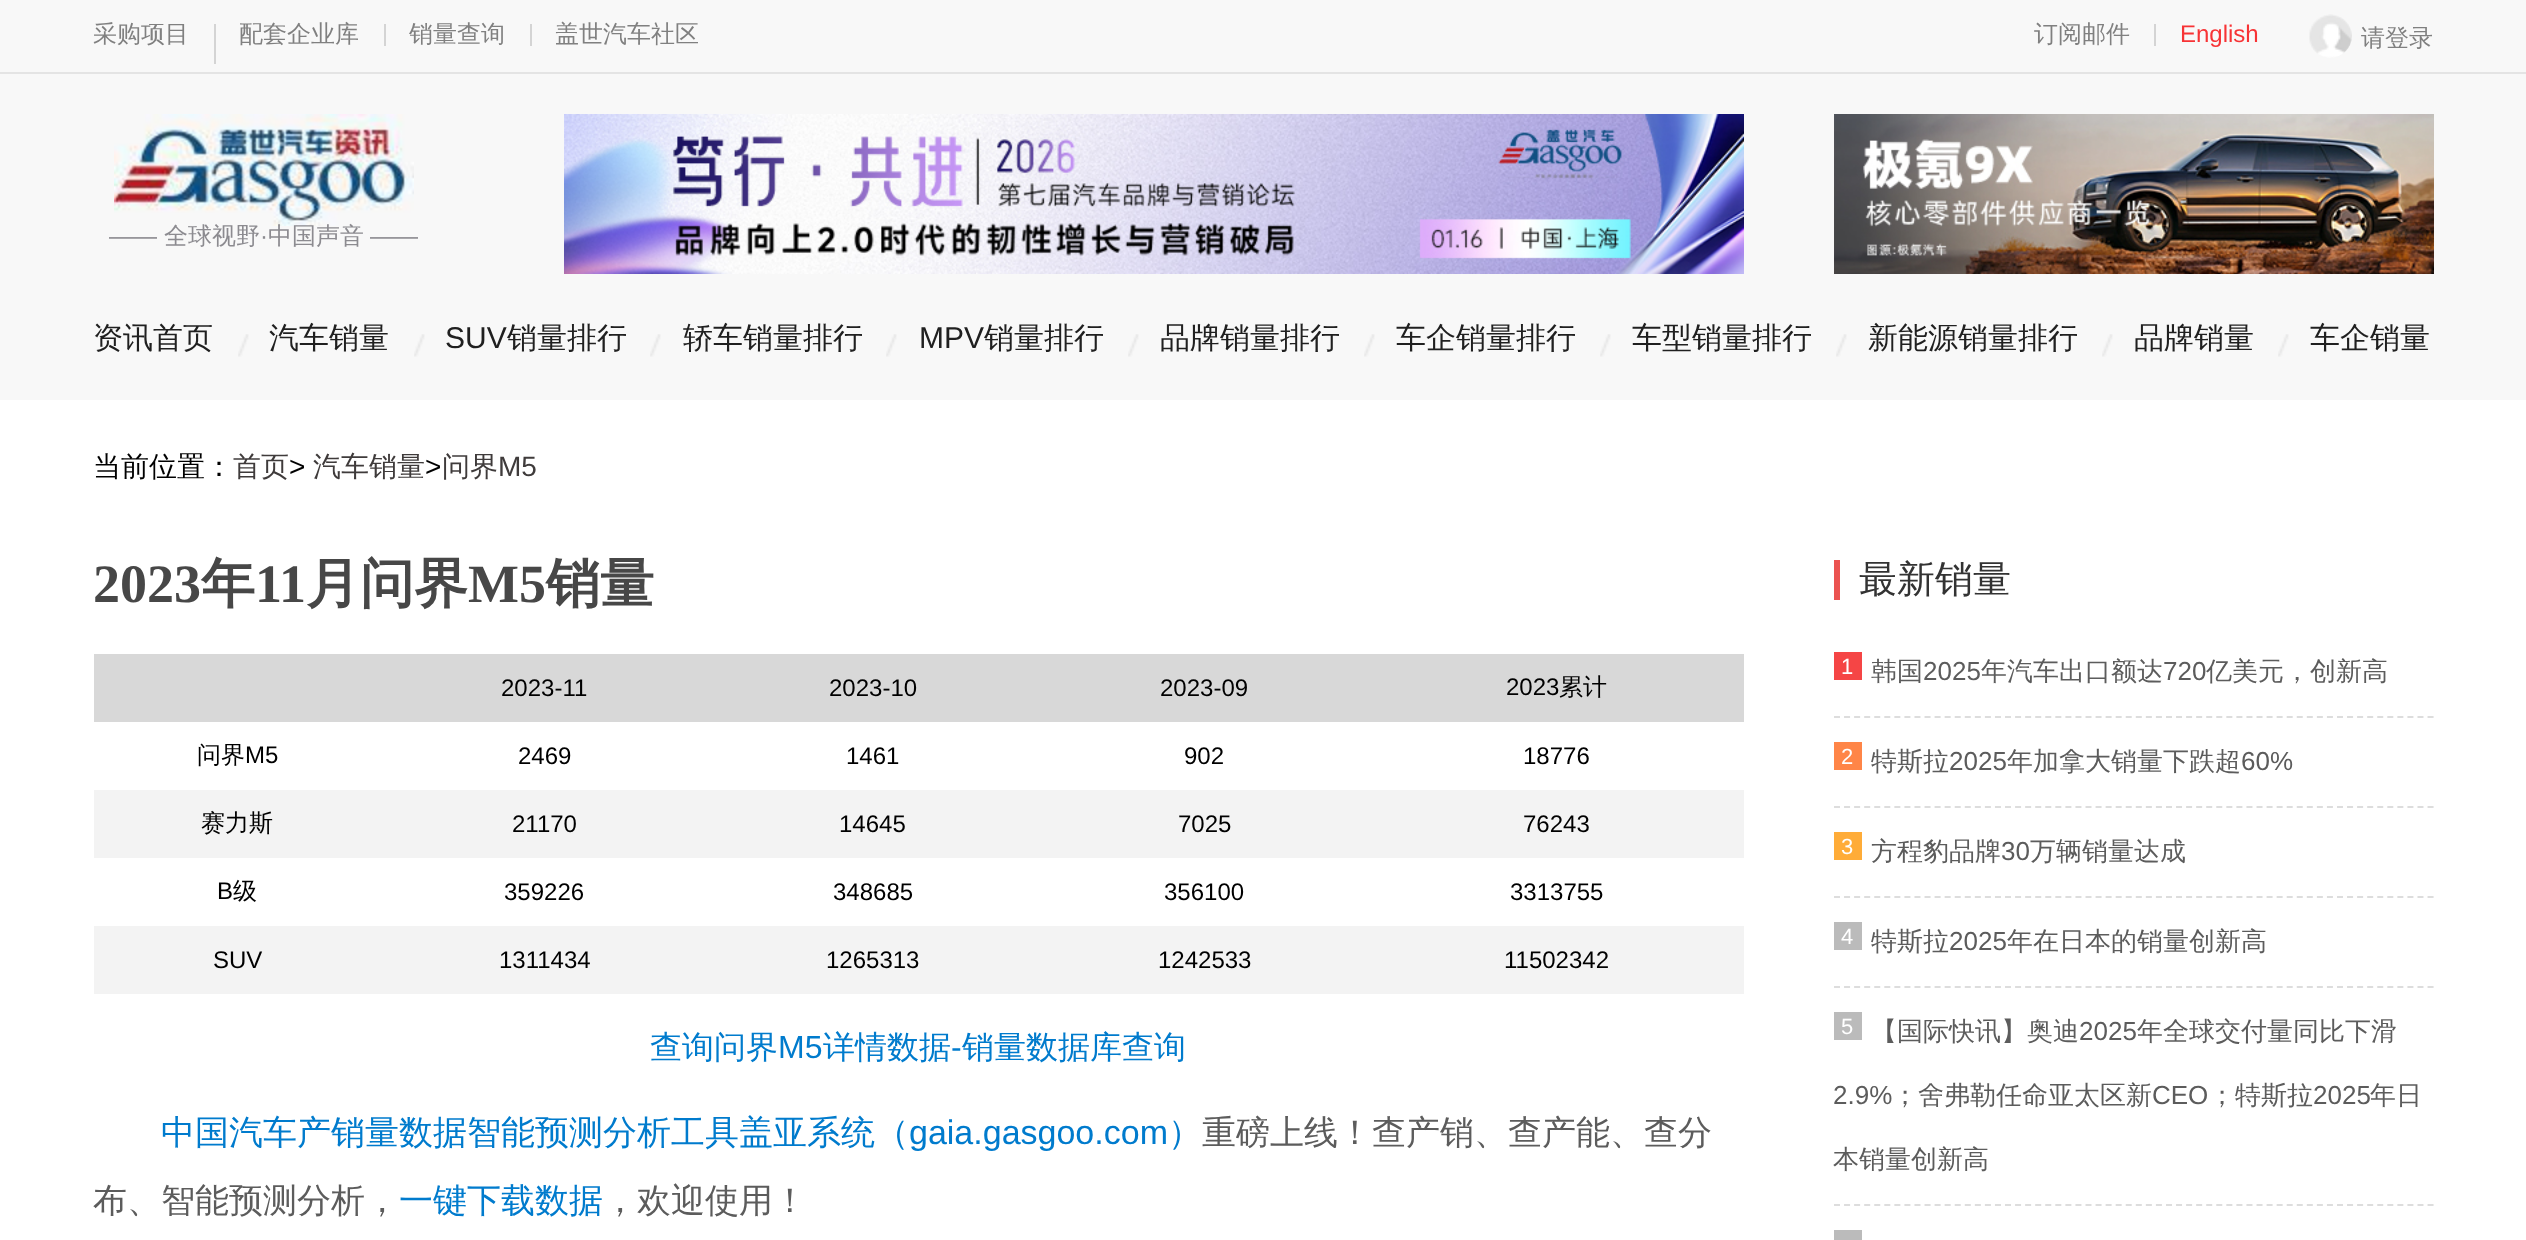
async function draw(canvas) {
  canvas.width = 2526
  canvas.height = 1240
  const ctx = canvas.getContext('2d')
  ctx.miterLimit = 4
  ctx.fontKerning = 'normal'
  async function loadImage(src) {
    const img = new Image()
    img.src = src
    await img.decode()
    return img
  }

  ctx.fillStyle = '#fff'
  ctx.fillRect(0, 0, 2526, 1240)
  ctx.fillStyle = '#f8f8f8'
  ctx.fillRect(0, 0, 2526, 72)
  ctx.fillStyle = '#e4e4e4'
  ctx.fillRect(0, 72, 2526, 2)
  ctx.fillStyle = '#d4d4d4'
  ctx.fillRect(214, 24, 2, 40)
  ctx.font = '500 24px WenQuanYi Zen Hei'
  ctx.fillStyle = '#808080'
  ctx.fillText('采购项目', 93, 42)
  ctx.fillStyle = '#d4d4d4'
  ctx.fillRect(384, 24, 2, 22)
  ctx.fillStyle = '#808080'
  ctx.fillText('配套企业库', 239, 42)
  ctx.fillStyle = '#d4d4d4'
  ctx.fillRect(530, 24, 2, 22)
  ctx.fillStyle = '#808080'
  ctx.fillText('销量查询', 409, 42)
  ctx.fillText('盖世汽车社区', 555, 42)
  ctx.fillStyle = '#d4d4d4'
  ctx.fillRect(2154, 24, 2, 22)
  ctx.fillStyle = '#808080'
  ctx.fillText('订阅邮件', 2034, 42)
  ctx.font = '24px Liberation Sans'
  ctx.fillStyle = '#f73335'
  ctx.fillText('English', 2180, 42)
  ctx.drawImage(await loadImage('image0.png'), 2309, 14, 43, 44)
  ctx.font = '500 24px WenQuanYi Zen Hei'
  ctx.fillStyle = '#808080'
  ctx.fillText('请登录', 2361, 46)
  ctx.fillStyle = '#f8f8f8'
  ctx.fillRect(0, 74, 2526, 326)
  ctx.drawImage(await loadImage('image1.png'), 114, 114, 300, 112)
  ctx.font = '24px Liberation Sans'
  ctx.fillStyle = '#8c8b90'
  ctx.fillText('——', 109, 244)
  ctx.font = '500 24px WenQuanYi Zen Hei'
  ctx.fillText('全球视野', 164, 244)
  ctx.font = '24px Liberation Sans'
  ctx.fillText('·', 260, 244)
  ctx.font = '500 24px WenQuanYi Zen Hei'
  ctx.fillText('中国声音', 268, 244)
  ctx.font = '24px Liberation Sans'
  ctx.fillText('——', 370, 244)
  ctx.drawImage(await loadImage('image2.png'), 564, 114, 1180, 160)
  ctx.drawImage(await loadImage('image3.png'), 1834, 114, 600, 160)
  ctx.drawImage(await loadImage('image4.png'), 238, 334, 11, 23)
  ctx.font = '500 30px WenQuanYi Zen Hei'
  ctx.fillStyle = '#202020'
  ctx.fillText('资讯首页', 93, 348)
  ctx.drawImage(await loadImage('image4.png'), 414, 334, 11, 23)
  ctx.fillText('汽车销量', 269, 348)
  ctx.drawImage(await loadImage('image4.png'), 650, 334, 11, 23)
  ctx.font = '30px Liberation Sans'
  ctx.fillText('SUV', 445, 348)
  ctx.font = '500 30px WenQuanYi Zen Hei'
  ctx.fillText('销量排行', 507, 348)
  ctx.drawImage(await loadImage('image4.png'), 886, 334, 11, 23)
  ctx.fillText('轿车销量排行', 683, 348)
  ctx.drawImage(await loadImage('image4.png'), 1128, 334, 11, 23)
  ctx.font = '30px Liberation Sans'
  ctx.fillText('MPV', 919, 348)
  ctx.font = '500 30px WenQuanYi Zen Hei'
  ctx.fillText('销量排行', 984, 348)
  ctx.drawImage(await loadImage('image4.png'), 1364, 334, 11, 23)
  ctx.fillText('品牌销量排行', 1160, 348)
  ctx.drawImage(await loadImage('image4.png'), 1600, 334, 11, 23)
  ctx.fillText('车企销量排行', 1396, 348)
  ctx.drawImage(await loadImage('image4.png'), 1836, 334, 11, 23)
  ctx.fillText('车型销量排行', 1632, 348)
  ctx.drawImage(await loadImage('image4.png'), 2102, 334, 11, 23)
  ctx.fillText('新能源销量排行', 1868, 348)
  ctx.drawImage(await loadImage('image4.png'), 2278, 334, 11, 23)
  ctx.fillText('品牌销量', 2134, 348)
  ctx.fillText('车企销量', 2310, 348)
  ctx.font = '500 28px WenQuanYi Zen Hei'
  ctx.fillStyle = '#000'
  ctx.fillText('当前位置：', 93, 476)
  ctx.fillStyle = '#3f3b3b'
  ctx.fillText('首页', 233, 476)
  ctx.font = '28px Liberation Sans'
  ctx.fillStyle = '#000'
  ctx.fillText('>', 289, 476)
  ctx.font = '500 28px WenQuanYi Zen Hei'
  ctx.fillStyle = '#3f3b3b'
  ctx.fillText('汽车销量', 313, 476)
  ctx.font = '28px Liberation Sans'
  ctx.fillStyle = '#000'
  ctx.fillText('>', 425, 476)
  ctx.font = '500 28px WenQuanYi Zen Hei'
  ctx.fillStyle = '#3f3b3b'
  ctx.fillText('问界', 442, 476)
  ctx.font = '28px Liberation Sans'
  ctx.fillText('M5', 498, 476)
  ctx.font = 'bold 54px Liberation Serif'
  ctx.fillStyle = '#474747'
  ctx.fillText('2023', 93, 602)
  ctx.font = 'bold 54px WenQuanYi Zen Hei'
  ctx.fillText('年', 201, 602)
  ctx.font = 'bold 54px Liberation Serif'
  ctx.fillText('11', 255, 602)
  ctx.font = 'bold 54px WenQuanYi Zen Hei'
  ctx.fillText('月问界', 306, 602)
  ctx.font = 'bold 54px Liberation Serif'
  ctx.fillText('M5', 468, 602)
  ctx.font = 'bold 54px WenQuanYi Zen Hei'
  ctx.fillText('销量', 546, 602)
  ctx.fillStyle = '#d8d8d8'
  ctx.fillRect(94, 654, 1650, 68)
  ctx.font = '24px Liberation Sans'
  ctx.fillStyle = '#000'
  ctx.fillText('2023-11', 501, 696)
  ctx.fillText('2023-10', 829, 696)
  ctx.fillText('2023-09', 1160, 696)
  ctx.fillText('2023', 1506, 695)
  ctx.font = '500 24px WenQuanYi Zen Hei'
  ctx.fillText('累计', 1559, 695)
  ctx.fillText('问界', 197, 763)
  ctx.font = '24px Liberation Sans'
  ctx.fillText('M5', 245, 763)
  ctx.fillText('2469', 518, 764)
  ctx.fillText('1461', 846, 764)
  ctx.fillText('902', 1184, 764)
  ctx.fillText('18776', 1523, 764)
  ctx.fillStyle = '#f3f3f3'
  ctx.fillRect(94, 790, 1650, 68)
  ctx.font = '500 24px WenQuanYi Zen Hei'
  ctx.fillStyle = '#000'
  ctx.fillText('赛力斯', 201, 831)
  ctx.font = '24px Liberation Sans'
  ctx.fillText('21170', 512, 832)
  ctx.fillText('14645', 839, 832)
  ctx.fillText('7025', 1178, 832)
  ctx.fillText('76243', 1523, 832)
  ctx.fillText('B', 217, 899)
  ctx.font = '500 24px WenQuanYi Zen Hei'
  ctx.fillText('级', 233, 899)
  ctx.font = '24px Liberation Sans'
  ctx.fillText('359226', 504, 900)
  ctx.fillText('348685', 833, 900)
  ctx.fillText('356100', 1164, 900)
  ctx.fillText('3313755', 1510, 900)
  ctx.fillStyle = '#f3f3f3'
  ctx.fillRect(94, 926, 1650, 68)
  ctx.fillStyle = '#000'
  ctx.fillText('SUV', 213, 968)
  ctx.fillText('1311434', 499, 968)
  ctx.fillText('1265313', 826, 968)
  ctx.fillText('1242533', 1158, 968)
  ctx.fillText('11502342', 1504, 968)
  ctx.font = '500 32px WenQuanYi Zen Hei'
  ctx.fillStyle = '#007bcd'
  ctx.fillText('查询问界', 650, 1058)
  ctx.font = '32px Liberation Sans'
  ctx.fillText('M5', 778, 1058)
  ctx.font = '500 32px WenQuanYi Zen Hei'
  ctx.fillText('详情数据', 823, 1058)
  ctx.font = '32px Liberation Sans'
  ctx.fillText('-', 951, 1058)
  ctx.font = '500 32px WenQuanYi Zen Hei'
  ctx.fillText('销量数据库查询', 962, 1058)
  ctx.font = '500 34px WenQuanYi Zen Hei'
  ctx.fillText('中国汽车产销量数据智能预测分析工具盖亚系统（', 161, 1144)
  ctx.font = '34px Liberation Sans'
  ctx.fillText('gaia.gasgoo.com', 909, 1144)
  ctx.font = '500 34px WenQuanYi Zen Hei'
  ctx.fillText('）', 1168, 1144)
  ctx.fillStyle = '#5c5c5c'
  ctx.fillText('重磅上线！查产销、查产能、查分', 1202, 1144)
  ctx.fillText('布、智能预测分析，', 93, 1212)
  ctx.fillStyle = '#007bcd'
  ctx.fillText('一键下载数据', 399, 1212)
  ctx.fillStyle = '#5c5c5c'
  ctx.fillText('，欢迎使用！', 603, 1212)
  ctx.fillStyle = '#eb5350'
  ctx.fillRect(1834, 560, 6, 40)
  ctx.font = '500 38px WenQuanYi Zen Hei'
  ctx.fillStyle = '#333'
  ctx.fillText('最新销量', 1859, 592)
  ctx.beginPath()
  ctx.moveTo(1834, 717)
  ctx.lineTo(2434, 717)
  ctx.strokeStyle = '#ddd'
  ctx.lineWidth = 2
  ctx.setLineDash([6, 4.06])
  ctx.stroke()
  ctx.fillStyle = '#f54545'
  ctx.fillRect(1834, 652, 28, 28)
  ctx.font = '22px Liberation Sans'
  ctx.fillStyle = '#fff'
  ctx.fillText('1', 1841, 674)
  ctx.font = '500 26px WenQuanYi Zen Hei'
  ctx.fillStyle = '#5c5c5c'
  ctx.fillText('韩国', 1871, 680)
  ctx.font = '26px Liberation Sans'
  ctx.fillText('2025', 1923, 680)
  ctx.font = '500 26px WenQuanYi Zen Hei'
  ctx.fillText('年汽车出口额达', 1981, 680)
  ctx.font = '26px Liberation Sans'
  ctx.fillText('720', 2163, 680)
  ctx.font = '500 26px WenQuanYi Zen Hei'
  ctx.fillText('亿美元，创新高', 2206, 680)
  ctx.beginPath()
  ctx.moveTo(1834, 807)
  ctx.lineTo(2434, 807)
  ctx.stroke()
  ctx.fillStyle = '#ff8547'
  ctx.fillRect(1834, 742, 28, 28)
  ctx.font = '22px Liberation Sans'
  ctx.fillStyle = '#fff'
  ctx.fillText('2', 1841, 764)
  ctx.font = '500 26px WenQuanYi Zen Hei'
  ctx.fillStyle = '#5c5c5c'
  ctx.fillText('特斯拉', 1871, 770)
  ctx.font = '26px Liberation Sans'
  ctx.fillText('2025', 1949, 770)
  ctx.font = '500 26px WenQuanYi Zen Hei'
  ctx.fillText('年加拿大销量下跌超', 2007, 770)
  ctx.font = '26px Liberation Sans'
  ctx.fillText('60%', 2241, 770)
  ctx.beginPath()
  ctx.moveTo(1834, 897)
  ctx.lineTo(2434, 897)
  ctx.stroke()
  ctx.fillStyle = '#ffac38'
  ctx.fillRect(1834, 832, 28, 28)
  ctx.font = '22px Liberation Sans'
  ctx.fillStyle = '#fff'
  ctx.fillText('3', 1841, 854)
  ctx.font = '500 26px WenQuanYi Zen Hei'
  ctx.fillStyle = '#5c5c5c'
  ctx.fillText('方程豹品牌', 1871, 860)
  ctx.font = '26px Liberation Sans'
  ctx.fillText('30', 2001, 860)
  ctx.font = '500 26px WenQuanYi Zen Hei'
  ctx.fillText('万辆销量达成', 2030, 860)
  ctx.beginPath()
  ctx.moveTo(1834, 987)
  ctx.lineTo(2434, 987)
  ctx.stroke()
  ctx.fillStyle = '#bbb'
  ctx.fillRect(1834, 922, 28, 28)
  ctx.font = '22px Liberation Sans'
  ctx.fillStyle = '#fff'
  ctx.fillText('4', 1841, 944)
  ctx.font = '500 26px WenQuanYi Zen Hei'
  ctx.fillStyle = '#5c5c5c'
  ctx.fillText('特斯拉', 1871, 950)
  ctx.font = '26px Liberation Sans'
  ctx.fillText('2025', 1949, 950)
  ctx.font = '500 26px WenQuanYi Zen Hei'
  ctx.fillText('年在日本的销量创新高', 2007, 950)
  ctx.beginPath()
  ctx.moveTo(1834, 1205)
  ctx.lineTo(2434, 1205)
  ctx.stroke()
  ctx.fillText('【国际快讯】奥迪', 1871, 1040)
  ctx.font = '26px Liberation Sans'
  ctx.fillText('2025', 2079, 1040)
  ctx.font = '500 26px WenQuanYi Zen Hei'
  ctx.fillText('年全球交付量同比下滑', 2137, 1040)
  ctx.font = '26px Liberation Sans'
  ctx.fillText('2.9%', 1833, 1104)
  ctx.font = '500 26px WenQuanYi Zen Hei'
  ctx.fillText('；舍弗勒任命亚太区新', 1892, 1104)
  ctx.font = '26px Liberation Sans'
  ctx.fillText('CEO', 2152, 1104)
  ctx.font = '500 26px WenQuanYi Zen Hei'
  ctx.fillText('；特斯拉', 2209, 1104)
  ctx.font = '26px Liberation Sans'
  ctx.fillText('2025', 2313, 1104)
  ctx.font = '500 26px WenQuanYi Zen Hei'
  ctx.fillText('年日', 2370, 1104)
  ctx.fillText('本销量创新高', 1833, 1168)
  ctx.fillStyle = '#bbb'
  ctx.fillRect(1834, 1012, 28, 28)
  ctx.font = '22px Liberation Sans'
  ctx.fillStyle = '#fff'
  ctx.fillText('5', 1841, 1034)
  ctx.fillStyle = '#bbb'
  ctx.fillRect(1834, 1230, 28, 10)
}

draw(document.querySelector('canvas'))
